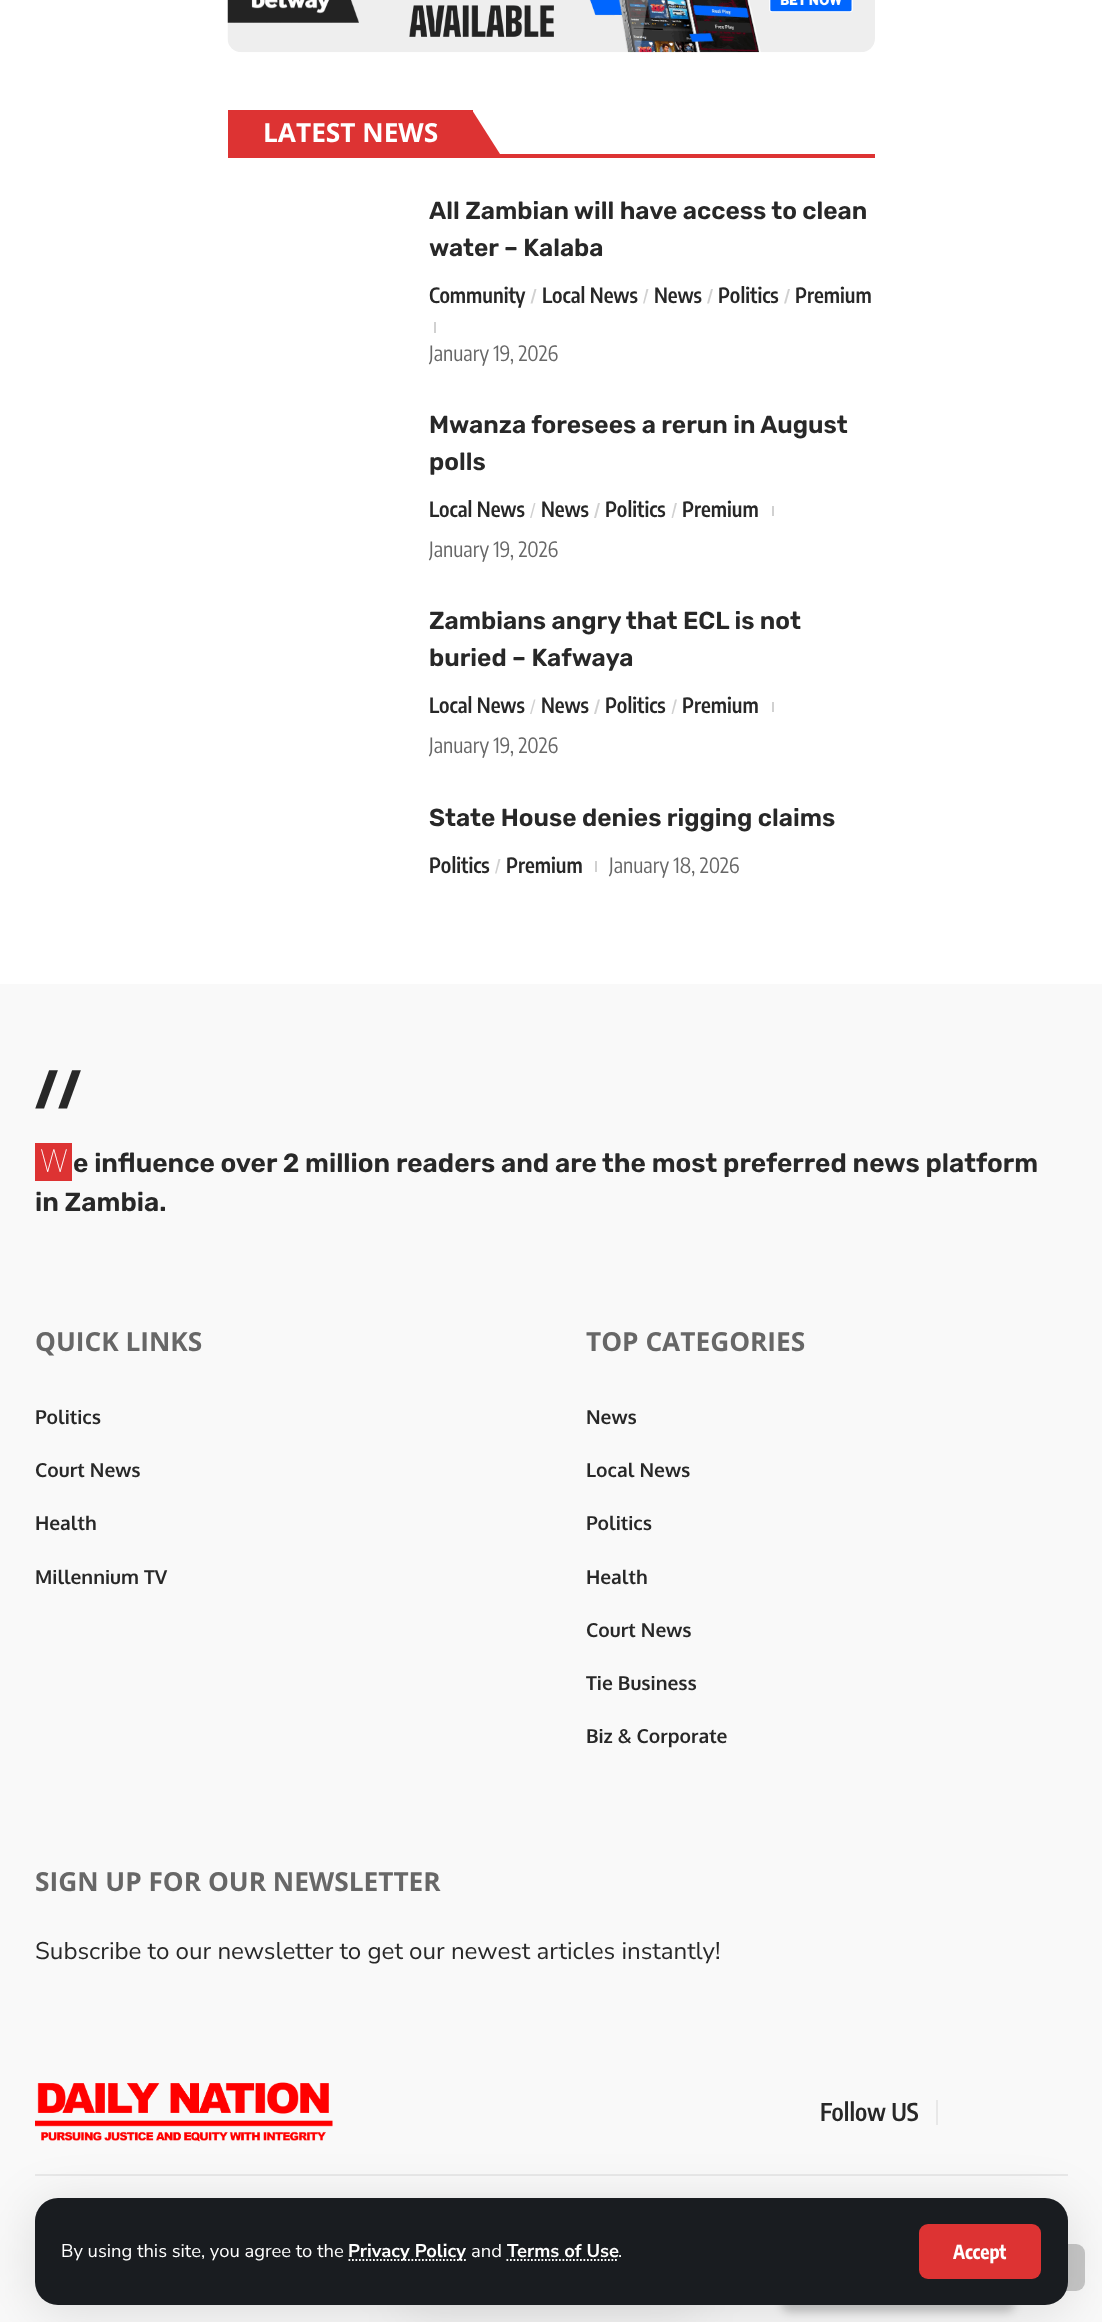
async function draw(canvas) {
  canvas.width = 1102
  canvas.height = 2322
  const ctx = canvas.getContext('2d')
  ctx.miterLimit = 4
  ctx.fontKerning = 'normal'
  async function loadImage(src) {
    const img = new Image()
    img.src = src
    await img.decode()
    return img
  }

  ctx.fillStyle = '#fff'
  ctx.fillRect(0, 0, 1102, 2322)
  ctx.drawImage(await loadImage('image0.png'), 227, 0, 648, 53)
  ctx.fillStyle = '#d33'
  ctx.fillRect(228, 154, 647, 4)
  ctx.fillRect(228, 110, 245, 44)
  ctx.beginPath()
  ctx.moveTo(472, 154)
  ctx.lineTo(472, 110)
  ctx.lineTo(500, 154)
  ctx.closePath()
  ctx.fill()
  ctx.font = 'bold 26.25px Open Sans'
  ctx.fillStyle = '#fff'
  ctx.fillText('LATEST NEWS', 263, 142)
  ctx.font = '600 24.5px Rubik'
  ctx.fillStyle = '#282828'
  ctx.fillText('All Zambian will have access to clean', 429, 219)
  ctx.fillText('water – Kalaba', 429, 256)
  ctx.font = '600 21px Encode Sans Condensed'
  ctx.fillText('Community', 429, 303)
  ctx.fillStyle = '#d1d1d1'
  ctx.beginPath()
  ctx.moveTo(534.5, 289)
  ctx.lineTo(536.5, 289)
  ctx.lineTo(532.5, 303.5)
  ctx.lineTo(530.5, 303.5)
  ctx.closePath()
  ctx.fill()
  ctx.fillStyle = '#282828'
  ctx.fillText('Local News', 542, 303)
  ctx.fillStyle = '#d1d1d1'
  ctx.beginPath()
  ctx.moveTo(646.5, 289)
  ctx.lineTo(648.5, 289)
  ctx.lineTo(644.5, 303.5)
  ctx.lineTo(643, 303.5)
  ctx.closePath()
  ctx.fill()
  ctx.fillStyle = '#282828'
  ctx.fillText('News', 654, 303)
  ctx.fillStyle = '#d1d1d1'
  ctx.beginPath()
  ctx.moveTo(711, 289)
  ctx.lineTo(713, 289)
  ctx.lineTo(709, 303.5)
  ctx.lineTo(707, 303.5)
  ctx.closePath()
  ctx.fill()
  ctx.fillStyle = '#282828'
  ctx.fillText('Politics', 718, 303)
  ctx.fillStyle = '#d1d1d1'
  ctx.beginPath()
  ctx.moveTo(788, 289)
  ctx.lineTo(790, 289)
  ctx.lineTo(786, 303.5)
  ctx.lineTo(784, 303.5)
  ctx.closePath()
  ctx.fill()
  ctx.fillStyle = '#282828'
  ctx.fillText('Premium', 795, 303)
  ctx.fillStyle = '#d1d1d1'
  ctx.fillRect(434, 322, 2, 11)
  ctx.font = '21px Encode Sans Condensed'
  ctx.fillStyle = '#676767'
  ctx.fillText('January 19, 2026', 429, 361)
  ctx.font = '600 24.5px Rubik'
  ctx.fillStyle = '#282828'
  ctx.fillText('Mwanza foresees a rerun in August', 429, 433)
  ctx.fillText('polls', 429, 470)
  ctx.font = '600 21px Encode Sans Condensed'
  ctx.fillText('Local News', 429, 517)
  ctx.fillStyle = '#d1d1d1'
  ctx.beginPath()
  ctx.moveTo(534, 503)
  ctx.lineTo(535.5, 503)
  ctx.lineTo(531.5, 518)
  ctx.lineTo(530, 518)
  ctx.closePath()
  ctx.fill()
  ctx.fillStyle = '#282828'
  ctx.fillText('News', 541, 517)
  ctx.fillStyle = '#d1d1d1'
  ctx.beginPath()
  ctx.moveTo(598, 503)
  ctx.lineTo(600, 503)
  ctx.lineTo(596, 518)
  ctx.lineTo(594, 518)
  ctx.closePath()
  ctx.fill()
  ctx.fillStyle = '#282828'
  ctx.fillText('Politics', 605, 517)
  ctx.fillStyle = '#d1d1d1'
  ctx.beginPath()
  ctx.moveTo(675, 503)
  ctx.lineTo(677, 503)
  ctx.lineTo(673, 518)
  ctx.lineTo(671.5, 518)
  ctx.closePath()
  ctx.fill()
  ctx.fillStyle = '#282828'
  ctx.fillText('Premium', 682, 517)
  ctx.fillStyle = '#d1d1d1'
  ctx.fillRect(772, 506, 2, 10)
  ctx.font = '21px Encode Sans Condensed'
  ctx.fillStyle = '#676767'
  ctx.fillText('January 19, 2026', 429, 557)
  ctx.font = '600 24.5px Rubik'
  ctx.fillStyle = '#282828'
  ctx.fillText('Zambians angry that ECL is not', 429, 629)
  ctx.fillText('buried – Kafwaya', 429, 666)
  ctx.font = '600 21px Encode Sans Condensed'
  ctx.fillText('Local News', 429, 713)
  ctx.fillStyle = '#d1d1d1'
  ctx.beginPath()
  ctx.moveTo(534, 699.5)
  ctx.lineTo(535.5, 699.5)
  ctx.lineTo(531.5, 714)
  ctx.lineTo(530, 714)
  ctx.closePath()
  ctx.fill()
  ctx.fillStyle = '#282828'
  ctx.fillText('News', 541, 713)
  ctx.fillStyle = '#d1d1d1'
  ctx.beginPath()
  ctx.moveTo(598, 699.5)
  ctx.lineTo(600, 699.5)
  ctx.lineTo(596, 714)
  ctx.lineTo(594, 714)
  ctx.closePath()
  ctx.fill()
  ctx.fillStyle = '#282828'
  ctx.fillText('Politics', 605, 713)
  ctx.fillStyle = '#d1d1d1'
  ctx.beginPath()
  ctx.moveTo(675, 699.5)
  ctx.lineTo(677, 699.5)
  ctx.lineTo(673, 714)
  ctx.lineTo(671.5, 714)
  ctx.closePath()
  ctx.fill()
  ctx.fillStyle = '#282828'
  ctx.fillText('Premium', 682, 713)
  ctx.fillStyle = '#d1d1d1'
  ctx.fillRect(772, 702, 2, 10)
  ctx.font = '21px Encode Sans Condensed'
  ctx.fillStyle = '#676767'
  ctx.fillText('January 19, 2026', 429, 753)
  ctx.font = '600 24.5px Rubik'
  ctx.fillStyle = '#282828'
  ctx.fillText('State House denies rigging claims', 429, 826)
  ctx.font = '600 21px Encode Sans Condensed'
  ctx.fillText('Politics', 429, 873)
  ctx.fillStyle = '#d1d1d1'
  ctx.beginPath()
  ctx.moveTo(498.5, 859)
  ctx.lineTo(500.5, 859)
  ctx.lineTo(496.5, 873.5)
  ctx.lineTo(495, 873.5)
  ctx.closePath()
  ctx.fill()
  ctx.fillStyle = '#282828'
  ctx.fillText('Premium', 506, 873)
  ctx.fillStyle = '#d1d1d1'
  ctx.fillRect(595, 861, 2, 11)
  ctx.font = '21px Encode Sans Condensed'
  ctx.fillStyle = '#676767'
  ctx.fillText('January 18, 2026', 609, 873)
  ctx.fillStyle = '#f9f9f9'
  ctx.fillRect(0, 984, 1102, 1338)
  ctx.fillStyle = '#e8e8e8'
  ctx.fillRect(35, 2174, 1033, 2)
  ctx.fillStyle = '#00000012'
  ctx.filter = 'blur(26px)'
  ctx.beginPath()
  ctx.roundRect(404, 2240, 294, 74, 14)
  ctx.fill()
  ctx.filter = 'none'
  ctx.fillStyle = '#00000033'
  ctx.filter = 'blur(5px)'
  ctx.beginPath()
  ctx.roundRect(781, 2235, 234, 77, 9)
  ctx.fill()
  ctx.filter = 'none'
  ctx.fillStyle = '#c8c8c8'
  ctx.beginPath()
  ctx.roundRect(1033, 2244, 52, 47, 9)
  ctx.fill()
  ctx.font = '800 52px Open Sans'
  ctx.fillStyle = '#282828'
  ctx.fillText('//', 35, 1108)
  ctx.fillStyle = '#d33'
  ctx.fillRect(35, 1143, 37, 38)
  ctx.font = '100 32px Noto Sans'
  ctx.fillStyle = '#fff'
  ctx.fillText('W', 40, 1172)
  ctx.font = '600 26.25px Rubik'
  ctx.fillStyle = '#282828'
  ctx.fillText('e influence over 2 million readers and are the most preferred news platform', 73, 1172)
  ctx.fillText('in Zambia.', 35, 1211)
  ctx.font = 'bold 26.25px Open Sans'
  ctx.fillStyle = '#676767'
  ctx.fillText('QUICK LINKS', 35, 1351)
  ctx.font = 'bold 19.25px Oxygen'
  ctx.fillStyle = '#282828'
  ctx.fillText('Politics', 35, 1424)
  ctx.fillText('Court News', 35, 1477)
  ctx.fillText('Health', 35, 1530)
  ctx.fillText('Millennium TV', 35, 1584)
  ctx.font = 'bold 26.25px Open Sans'
  ctx.fillStyle = '#676767'
  ctx.fillText('TOP CATEGORIES', 586, 1351)
  ctx.font = 'bold 19.25px Oxygen'
  ctx.fillStyle = '#282828'
  ctx.fillText('News', 586, 1424)
  ctx.fillText('Local News', 586, 1477)
  ctx.fillText('Politics', 586, 1530)
  ctx.fillText('Health', 586, 1584)
  ctx.fillText('Court News', 586, 1637)
  ctx.fillText('Tie Business', 586, 1690)
  ctx.fillText('Biz & Corporate', 586, 1743)
  ctx.font = 'bold 26.25px Open Sans'
  ctx.fillStyle = '#676767'
  ctx.fillText('SIGN UP FOR OUR NEWSLETTER', 35, 1891)
  ctx.font = '24.15px Nunito Sans'
  ctx.fillStyle = '#282828'
  ctx.fillText('Subscribe to our newsletter to get our newest articles instantly!', 35, 1959)
  ctx.drawImage(await loadImage('image1.png'), 35, 2082, 298, 60)
  ctx.fillStyle = '#e8e8e8'
  ctx.fillRect(936, 2100, 2, 25)
  ctx.font = '600 24.5px Encode Sans Condensed'
  ctx.fillStyle = '#282828'
  ctx.fillText('Follow US', 820, 2121)
  ctx.fillStyle = '#0000001f'
  ctx.filter = 'blur(26px)'
  ctx.beginPath()
  ctx.roundRect(35, 2205, 1033, 107, 23)
  ctx.fill()
  ctx.filter = 'none'
  ctx.fillStyle = '#191c20'
  ctx.beginPath()
  ctx.roundRect(35, 2198, 1033, 107, 23)
  ctx.fill()
  ctx.font = '18.4px Nunito Sans'
  ctx.fillStyle = '#fff'
  ctx.fillText('By using this site, you agree to the', 61, 2257)
  ctx.beginPath()
  ctx.moveTo(348.5, 2260)
  ctx.lineTo(466.5, 2260)
  ctx.strokeStyle = '#fff'
  ctx.lineWidth = 1.8
  ctx.setLineDash([1.75, 1.75])
  ctx.stroke()
  ctx.font = 'bold 18.4px Nunito Sans'
  ctx.fillText('Privacy Policy', 348, 2257)
  ctx.font = '18.4px Nunito Sans'
  ctx.fillText('and', 471, 2257)
  ctx.font = 'bold 18.4px Nunito Sans'
  ctx.fillText('Terms of Use', 507, 2257)
  ctx.beginPath()
  ctx.moveTo(506.5, 2260)
  ctx.lineTo(618.5, 2260)
  ctx.stroke()
  ctx.font = '18.4px Nunito Sans'
  ctx.fillText('.', 618, 2257)
  ctx.fillStyle = '#d33'
  ctx.beginPath()
  ctx.roundRect(919, 2224, 122, 55, 9)
  ctx.fill()
  ctx.font = 'bold 19.25px Encode Sans Condensed'
  ctx.fillStyle = '#fff'
  ctx.fillText('Accept', 953, 2259)
}

draw(document.querySelector('canvas'))
